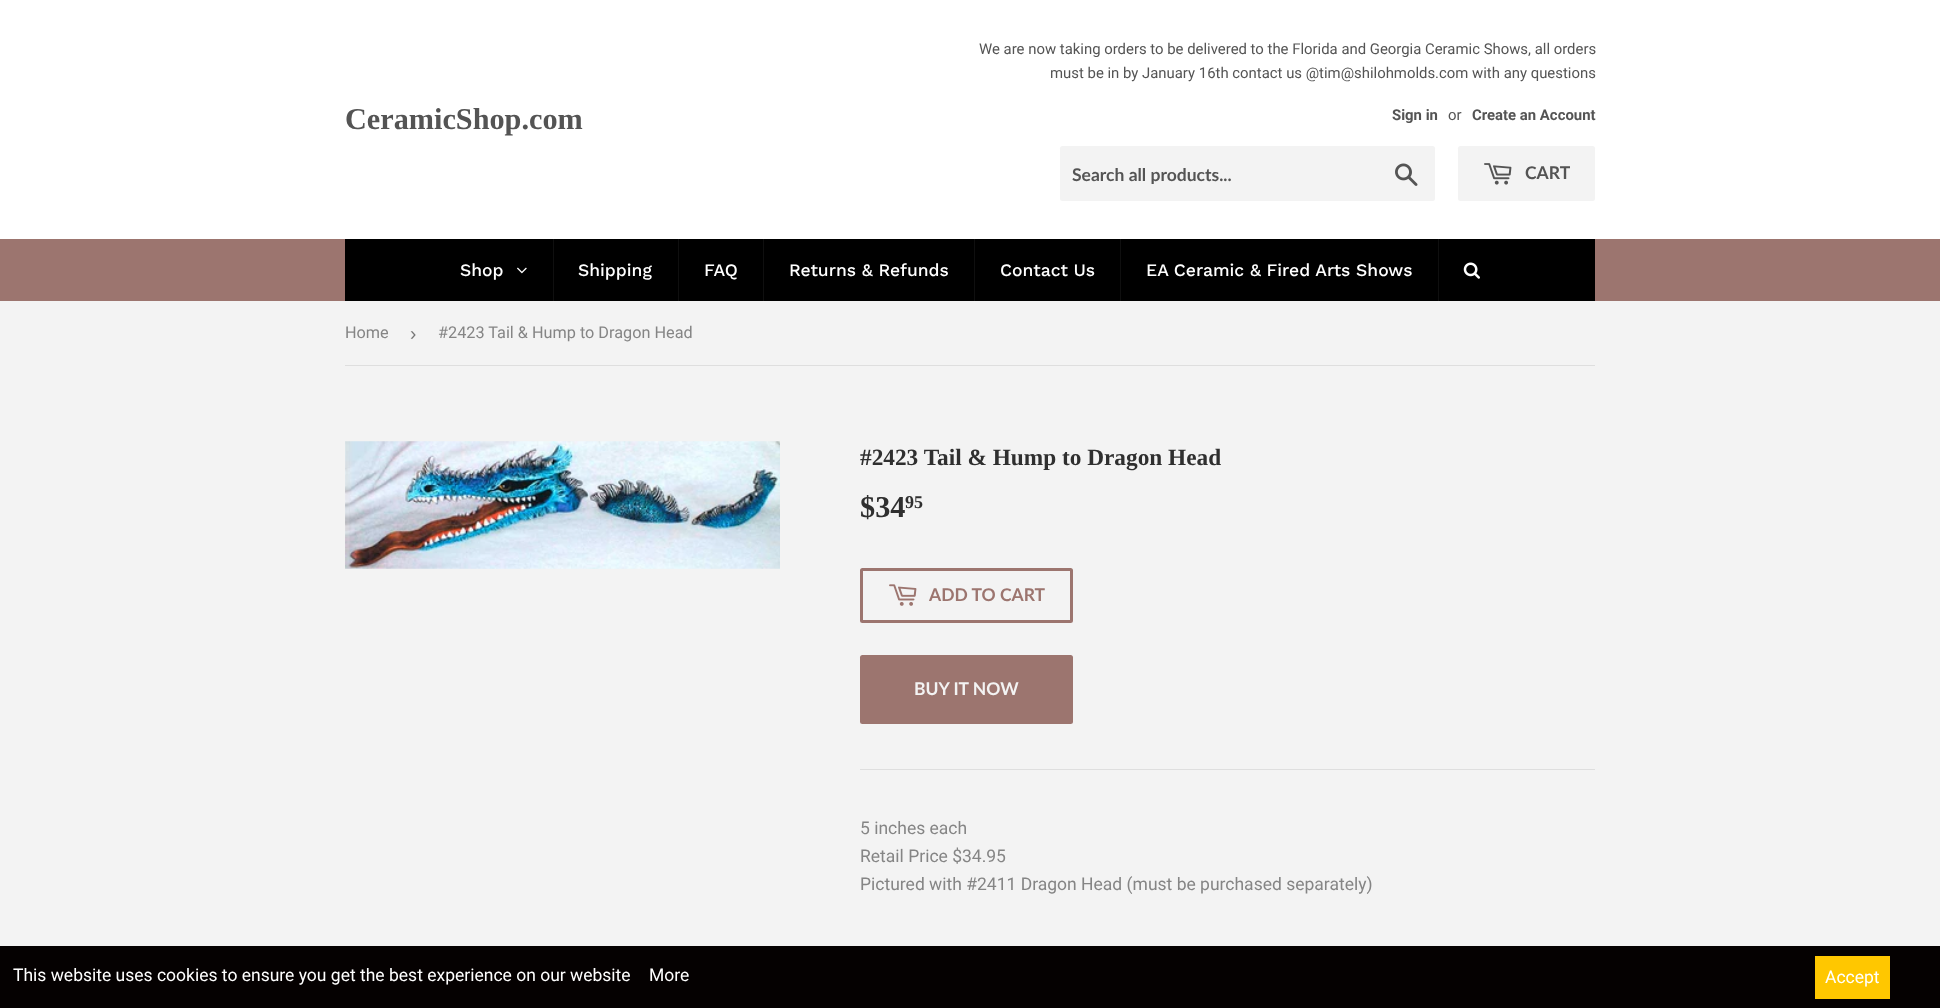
async function draw(canvas) {
  canvas.width = 1940
  canvas.height = 1008
  const ctx = canvas.getContext('2d')
  ctx.miterLimit = 4
  ctx.fontKerning = 'normal'
  async function loadImage(src) {
    const img = new Image()
    img.src = src
    await img.decode()
    return img
  }

  ctx.fillStyle = '#f3f3f3'
  ctx.fillRect(0, 0, 1940, 1008)
  ctx.fillStyle = '#fff'
  ctx.fillRect(0, 0, 1940, 239)
  ctx.font = 'bold 30.25px Liberation Serif'
  ctx.fillStyle = '#545454'
  ctx.fillText('CeramicShop.com', 345, 129)
  ctx.font = '14.9px Roboto'
  ctx.fillText('We are now taking orders to be delivered to the Florida and Georgia Ceramic Shows, all orders', 979, 54)
  ctx.fillText('must be in by January 16th contact us @tim@shilohmolds.com with any questions', 1050, 78)
  ctx.font = 'bold 14.9px Roboto'
  ctx.fillText('Sign in', 1392, 120)
  ctx.font = '14.9px Roboto'
  ctx.fillText('or', 1448, 120)
  ctx.font = 'bold 14.9px Roboto'
  ctx.fillText('Create an Account', 1472, 120)
  ctx.fillStyle = '#f3f3f3'
  ctx.beginPath()
  ctx.roundRect(1060, 146, 375, 55, 2.5)
  ctx.fill()
  ctx.font = 'bold 17.5px Lato'
  ctx.fillStyle = '#545454'
  ctx.fillText('Search all products...', 1072, 181)
  ctx.drawImage(await loadImage('image0.png'), 1395, 163, 23, 23)
  ctx.fillStyle = '#f3f3f3'
  ctx.beginPath()
  ctx.roundRect(1458, 146, 137, 55, 2.5)
  ctx.fill()
  ctx.drawImage(await loadImage('image1.png'), 1484, 163, 28, 22)
  ctx.fillStyle = '#545454'
  ctx.fillText('CART', 1525, 179)
  ctx.fillStyle = '#9c756f'
  ctx.fillRect(0, 239, 1940, 62)
  ctx.fillStyle = '#000'
  ctx.fillRect(345, 239, 1250, 62)
  ctx.font = '500 17.5px Work Sans'
  ctx.fillStyle = '#fff'
  ctx.fillText('Shop', 460, 276)
  ctx.drawImage(await loadImage('image2.png'), 517, 267, 10, 7)
  ctx.fillStyle = '#0f0f0f'
  ctx.fillRect(553, 239, 1, 62)
  ctx.fillStyle = '#fff'
  ctx.fillText('Shipping', 578, 276)
  ctx.fillStyle = '#0f0f0f'
  ctx.fillRect(678, 239, 1, 62)
  ctx.fillStyle = '#fff'
  ctx.fillText('FAQ', 704, 276)
  ctx.fillStyle = '#0f0f0f'
  ctx.fillRect(763, 239, 1, 62)
  ctx.fillStyle = '#fff'
  ctx.fillText('Returns & Refunds', 789, 276)
  ctx.fillStyle = '#0f0f0f'
  ctx.fillRect(974, 239, 1, 62)
  ctx.fillStyle = '#fff'
  ctx.fillText('Contact Us', 1000, 276)
  ctx.fillStyle = '#0f0f0f'
  ctx.fillRect(1120, 239, 1, 62)
  ctx.fillStyle = '#fff'
  ctx.fillText('EA Ceramic & Fired Arts Shows', 1146, 276)
  ctx.fillStyle = '#0f0f0f'
  ctx.fillRect(1438, 239, 1, 62)
  ctx.drawImage(await loadImage('image3.png'), 1463, 262, 17, 17)
  ctx.fillStyle = '#dedede'
  ctx.fillRect(345, 365, 1250, 1)
  ctx.font = '16.25px Roboto'
  ctx.fillStyle = '#858585'
  ctx.fillText('Home', 345, 338)
  ctx.font = '19px Liberation Sans'
  ctx.fillStyle = '#767676'
  ctx.fillText('›', 410, 340)
  ctx.font = '16.25px Roboto'
  ctx.fillStyle = '#858585'
  ctx.fillText('#2423 Tail & Hump to Dragon Head', 438, 338)
  ctx.drawImage(await loadImage('image4.png'), 345, 441, 435, 128)
  ctx.font = 'bold 23.3px Liberation Serif'
  ctx.fillStyle = '#2f2f2f'
  ctx.fillText('#2423 Tail & Hump to Dragon Head', 860, 465)
  ctx.font = 'bold 30.25px Liberation Serif'
  ctx.fillText('$34', 860, 517)
  ctx.font = 'bold 18px Liberation Serif'
  ctx.fillText('95', 905, 508)
  ctx.beginPath()
  ctx.roundRect(861.5, 569.5, 210, 52, 1)
  ctx.strokeStyle = '#9c756f'
  ctx.lineWidth = 3
  ctx.stroke()
  ctx.drawImage(await loadImage('image5.png'), 889, 584, 28, 22)
  ctx.font = 'bold 17.5px Lato'
  ctx.fillStyle = '#9c756f'
  ctx.fillText('ADD TO CART', 929, 601)
  ctx.beginPath()
  ctx.roundRect(860, 655, 213, 69, 2.5)
  ctx.fill()
  ctx.fillStyle = '#f3f3f3'
  ctx.fillText('BUY IT NOW', 914, 695)
  ctx.fillStyle = '#dedede'
  ctx.fillRect(860, 769, 735, 1)
  ctx.font = '17.5px Roboto'
  ctx.fillStyle = '#858585'
  ctx.fillText('5 inches each', 860, 834)
  ctx.fillText('Retail Price $34.95', 860, 862)
  ctx.fillText('Pictured with #2411 Dragon Head (must be purchased separately)', 860, 890)
  ctx.fillStyle = '#050101'
  ctx.fillRect(0, 946, 1940, 62)
  ctx.fillStyle = '#fff'
  ctx.fillText('This website uses cookies to ensure you get the best experience on our website', 13, 981)
  ctx.fillText('More', 649, 981)
  ctx.fillStyle = '#ffc700'
  ctx.beginPath()
  ctx.rect(1816.5, 957.5, 72, 40)
  ctx.fill()
  ctx.strokeStyle = '#ffc700'
  ctx.stroke()
  ctx.fillStyle = '#fff'
  ctx.fillText('Accept', 1825, 983)
}

draw(document.querySelector('canvas'))
